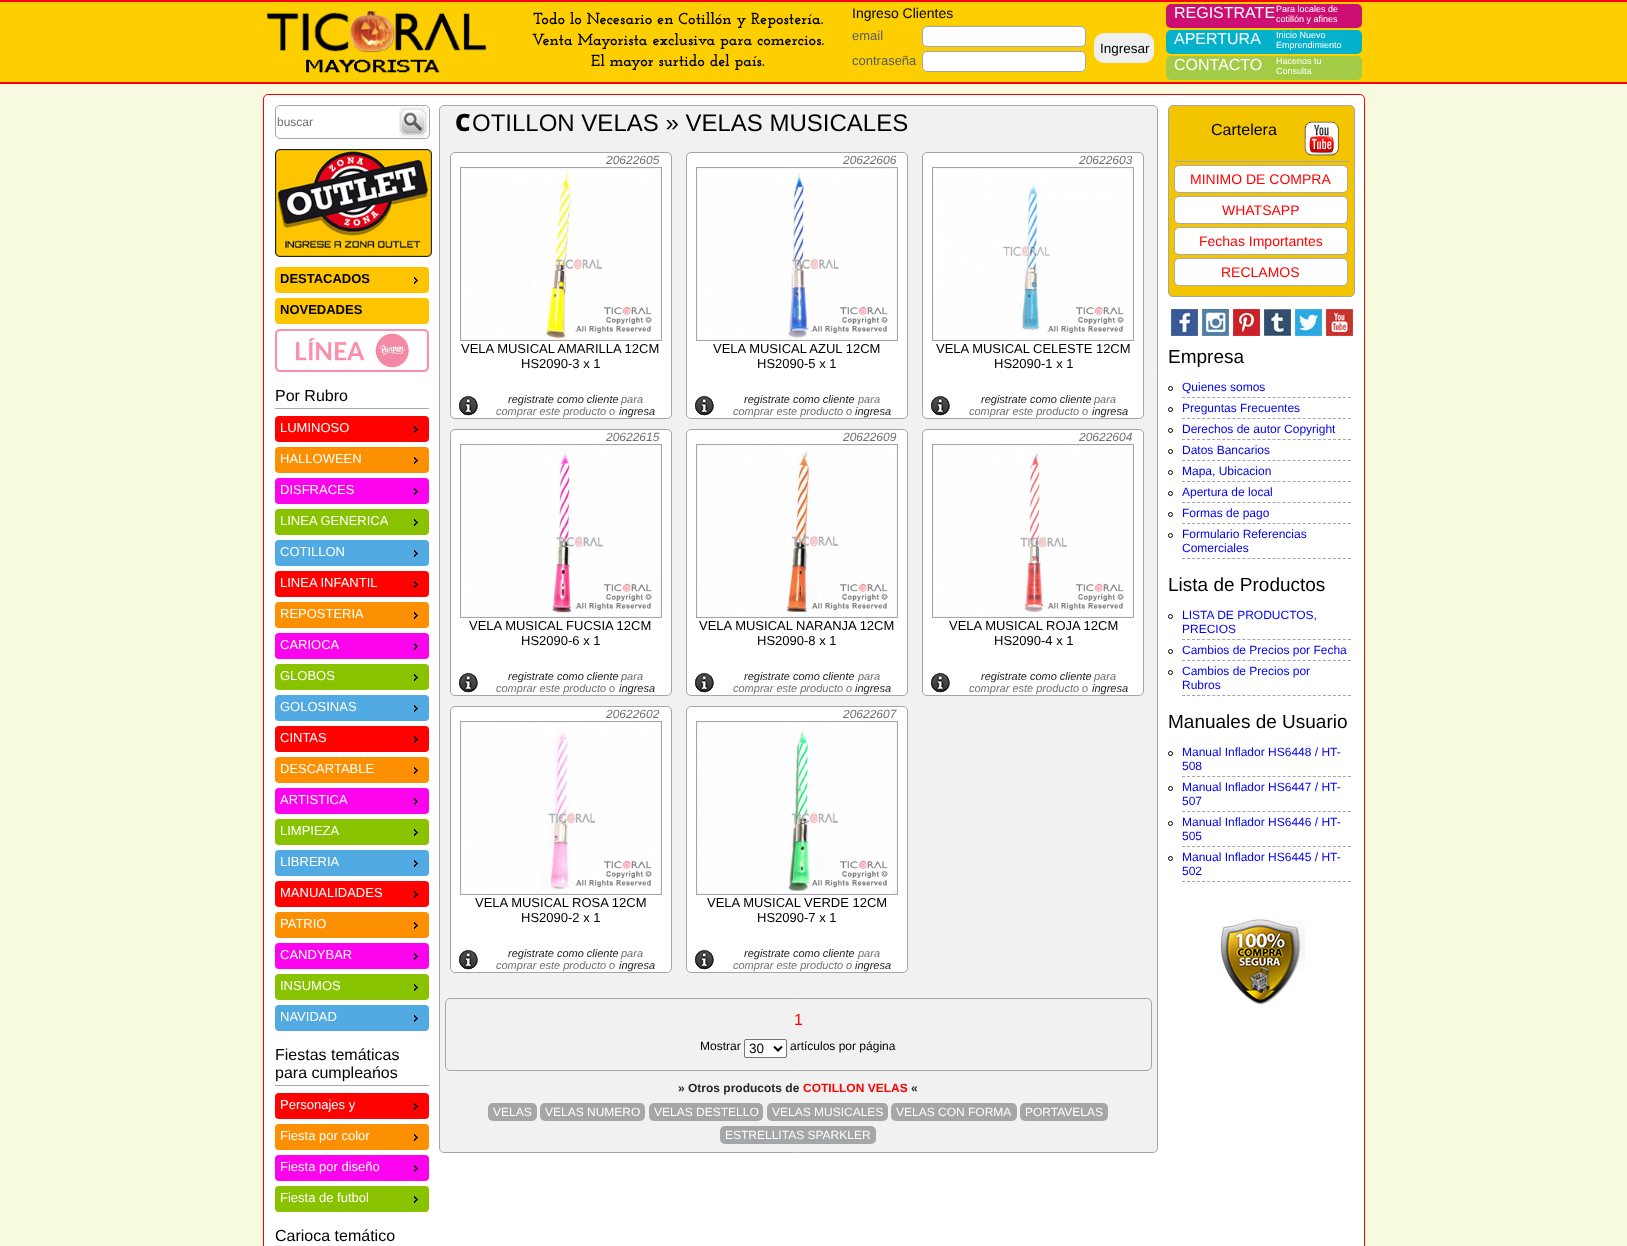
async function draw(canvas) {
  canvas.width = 1627
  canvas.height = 1246
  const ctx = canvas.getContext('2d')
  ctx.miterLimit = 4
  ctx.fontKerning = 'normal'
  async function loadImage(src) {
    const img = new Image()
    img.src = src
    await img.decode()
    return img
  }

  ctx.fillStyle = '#f7fade'
  ctx.fillRect(0, 0, 1627, 1246)
  ctx.fillStyle = '#fecf00'
  ctx.fillRect(0, 2, 1627, 80)
  ctx.fillStyle = '#f00'
  ctx.fillRect(0, 0, 1627, 2)
  ctx.fillRect(0, 82, 1627, 2)
  ctx.drawImage(await loadImage('image0.png'), 266, 10, 221, 63)
  ctx.font = 'bold 16px Josefin Slab'
  ctx.fillStyle = '#000'
  ctx.fillText('Todo lo Necesario en Cotillón y Repostería.', 533, 24)
  ctx.fillText('Venta Mayorista exclusiva para comercios.', 532, 45)
  ctx.fillText('El mayor surtido del país.', 591, 66)
  ctx.font = '14px Liberation Sans'
  ctx.fillText('Ingreso Clientes', 852, 18)
  ctx.font = '13px Liberation Sans'
  ctx.fillStyle = '#5c5d5e'
  ctx.fillText('email', 852, 40)
  ctx.fillStyle = '#fff'
  ctx.beginPath()
  ctx.roundRect(922.5, 26.5, 163, 20, 4.5)
  ctx.fill()
  ctx.strokeStyle = '#a5a6a7'
  ctx.stroke()
  ctx.fillStyle = '#5c5d5e'
  ctx.fillText('contraseña', 852, 65)
  ctx.fillStyle = '#fff'
  ctx.beginPath()
  ctx.roundRect(922.5, 51.5, 163, 20, 4.5)
  ctx.fill()
  ctx.stroke()
  ctx.fillStyle = '#efefef'
  ctx.beginPath()
  ctx.roundRect(1094, 33, 60, 30, 10)
  ctx.fill()
  ctx.font = '13.5px Liberation Sans'
  ctx.fillStyle = '#000'
  ctx.fillText('Ingresar', 1100, 53)
  ctx.fillStyle = '#cd0f73'
  ctx.beginPath()
  ctx.roundRect(1166, 4, 196, 24, 5)
  ctx.fill()
  ctx.font = '16px Liberation Sans'
  ctx.fillStyle = '#fff'
  ctx.fillText('REGISTRATE', 1174, 18)
  ctx.font = '9px Liberation Sans'
  ctx.fillText('Para locales de', 1276, 12)
  ctx.fillText('cotillón y afines', 1276, 22)
  ctx.fillStyle = '#05b2cc'
  ctx.beginPath()
  ctx.roundRect(1166, 30, 196, 24, 5)
  ctx.fill()
  ctx.font = '16px Liberation Sans'
  ctx.fillStyle = '#fff'
  ctx.fillText('APERTURA', 1174, 44)
  ctx.font = '9px Liberation Sans'
  ctx.fillText('Inicio Nuevo', 1276, 38)
  ctx.fillText('Emprendimiento', 1276, 48)
  ctx.fillStyle = '#a3cb45'
  ctx.beginPath()
  ctx.roundRect(1166, 56, 196, 24, 5)
  ctx.fill()
  ctx.font = '16px Liberation Sans'
  ctx.fillStyle = '#fff'
  ctx.fillText('CONTACTO', 1174, 70)
  ctx.font = '9px Liberation Sans'
  ctx.fillText('Hacenos tu', 1276, 64)
  ctx.fillText('Consulta', 1276, 74)
  ctx.beginPath()
  ctx.roundRect(263.5, 94.5, 1101, 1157, 4.5)
  ctx.fill()
  ctx.strokeStyle = '#f00'
  ctx.stroke()
  ctx.beginPath()
  ctx.roundRect(275.5, 105.5, 154, 33, 4.5)
  ctx.strokeStyle = '#a5a6a7'
  ctx.stroke()
  ctx.font = '12px Liberation Sans'
  ctx.fillStyle = '#707070'
  ctx.fillText('buscar', 277, 126)
  ctx.fillStyle = '#efefef'
  ctx.beginPath()
  ctx.roundRect(399, 107, 28, 30, 5)
  ctx.fill()
  ctx.drawImage(await loadImage('image1.png'), 400, 109, 26, 26)
  ctx.drawImage(await loadImage('image2.png'), 275, 149, 157, 108)
  ctx.fillStyle = '#fec400'
  ctx.beginPath()
  ctx.roundRect(275, 267, 154, 26, 4)
  ctx.fill()
  ctx.font = 'bold 13px Liberation Sans'
  ctx.fillStyle = '#000'
  ctx.fillText('DESTACADOS', 280, 283)
  ctx.drawImage(await loadImage('image3.png'), 414, 277, 4, 7)
  ctx.fillStyle = '#fec400'
  ctx.beginPath()
  ctx.roundRect(275, 298, 154, 26, 4)
  ctx.fill()
  ctx.fillStyle = '#000'
  ctx.fillText('NOVEDADES', 280, 314)
  ctx.drawImage(await loadImage('image4.png'), 275, 329, 154, 43)
  ctx.fillStyle = '#a5a6a7'
  ctx.fillRect(275, 408, 154, 1)
  ctx.font = '16px Liberation Sans'
  ctx.fillStyle = '#000'
  ctx.fillText('Por Rubro', 275, 401)
  ctx.fillStyle = '#ff0100'
  ctx.beginPath()
  ctx.roundRect(275, 416, 154, 26, 4)
  ctx.fill()
  ctx.font = '13px Liberation Sans'
  ctx.fillStyle = '#fff'
  ctx.fillText('LUMINOSO', 280, 432)
  ctx.drawImage(await loadImage('image5.png'), 414, 426, 4, 7)
  ctx.fillStyle = '#fc8f02'
  ctx.beginPath()
  ctx.roundRect(275, 447, 154, 26, 4)
  ctx.fill()
  ctx.fillStyle = '#fff'
  ctx.fillText('HALLOWEEN', 280, 463)
  ctx.drawImage(await loadImage('image6.png'), 414, 457, 4, 7)
  ctx.fillStyle = '#fc02ed'
  ctx.beginPath()
  ctx.roundRect(275, 478, 154, 26, 4)
  ctx.fill()
  ctx.fillStyle = '#fff'
  ctx.fillText('DISFRACES', 280, 494)
  ctx.drawImage(await loadImage('image7.png'), 414, 488, 4, 7)
  ctx.fillStyle = '#89c300'
  ctx.beginPath()
  ctx.roundRect(275, 509, 154, 26, 4)
  ctx.fill()
  ctx.fillStyle = '#fff'
  ctx.fillText('LINEA GENERICA', 280, 525)
  ctx.drawImage(await loadImage('image8.png'), 414, 519, 4, 7)
  ctx.fillStyle = '#51aae1'
  ctx.beginPath()
  ctx.roundRect(275, 540, 154, 26, 4)
  ctx.fill()
  ctx.fillStyle = '#fff'
  ctx.fillText('COTILLON', 280, 556)
  ctx.drawImage(await loadImage('image9.png'), 414, 550, 4, 7)
  ctx.fillStyle = '#ff0100'
  ctx.beginPath()
  ctx.roundRect(275, 571, 154, 26, 4)
  ctx.fill()
  ctx.fillStyle = '#fff'
  ctx.fillText('LINEA INFANTIL', 280, 587)
  ctx.drawImage(await loadImage('image5.png'), 414, 581, 4, 7)
  ctx.fillStyle = '#fc8f02'
  ctx.beginPath()
  ctx.roundRect(275, 602, 154, 26, 4)
  ctx.fill()
  ctx.fillStyle = '#fff'
  ctx.fillText('REPOSTERIA', 280, 618)
  ctx.drawImage(await loadImage('image6.png'), 414, 612, 4, 7)
  ctx.fillStyle = '#fc02ed'
  ctx.beginPath()
  ctx.roundRect(275, 633, 154, 26, 4)
  ctx.fill()
  ctx.fillStyle = '#fff'
  ctx.fillText('CARIOCA', 280, 649)
  ctx.drawImage(await loadImage('image7.png'), 414, 643, 4, 7)
  ctx.fillStyle = '#89c300'
  ctx.beginPath()
  ctx.roundRect(275, 664, 154, 26, 4)
  ctx.fill()
  ctx.fillStyle = '#fff'
  ctx.fillText('GLOBOS', 280, 680)
  ctx.drawImage(await loadImage('image8.png'), 414, 674, 4, 7)
  ctx.fillStyle = '#51aae1'
  ctx.beginPath()
  ctx.roundRect(275, 695, 154, 26, 4)
  ctx.fill()
  ctx.fillStyle = '#fff'
  ctx.fillText('GOLOSINAS', 280, 711)
  ctx.drawImage(await loadImage('image9.png'), 414, 705, 4, 7)
  ctx.fillStyle = '#ff0100'
  ctx.beginPath()
  ctx.roundRect(275, 726, 154, 26, 4)
  ctx.fill()
  ctx.fillStyle = '#fff'
  ctx.fillText('CINTAS', 280, 742)
  ctx.drawImage(await loadImage('image5.png'), 414, 736, 4, 7)
  ctx.fillStyle = '#fc8f02'
  ctx.beginPath()
  ctx.roundRect(275, 757, 154, 26, 4)
  ctx.fill()
  ctx.fillStyle = '#fff'
  ctx.fillText('DESCARTABLE', 280, 773)
  ctx.drawImage(await loadImage('image6.png'), 414, 767, 4, 7)
  ctx.fillStyle = '#fc02ed'
  ctx.beginPath()
  ctx.roundRect(275, 788, 154, 26, 4)
  ctx.fill()
  ctx.fillStyle = '#fff'
  ctx.fillText('ARTISTICA', 280, 804)
  ctx.drawImage(await loadImage('image7.png'), 414, 798, 4, 7)
  ctx.fillStyle = '#89c300'
  ctx.beginPath()
  ctx.roundRect(275, 819, 154, 26, 4)
  ctx.fill()
  ctx.fillStyle = '#fff'
  ctx.fillText('LIMPIEZA', 280, 835)
  ctx.drawImage(await loadImage('image8.png'), 414, 829, 4, 7)
  ctx.fillStyle = '#51aae1'
  ctx.beginPath()
  ctx.roundRect(275, 850, 154, 26, 4)
  ctx.fill()
  ctx.fillStyle = '#fff'
  ctx.fillText('LIBRERIA', 280, 866)
  ctx.drawImage(await loadImage('image9.png'), 414, 860, 4, 7)
  ctx.fillStyle = '#ff0100'
  ctx.beginPath()
  ctx.roundRect(275, 881, 154, 26, 4)
  ctx.fill()
  ctx.fillStyle = '#fff'
  ctx.fillText('MANUALIDADES', 280, 897)
  ctx.drawImage(await loadImage('image5.png'), 414, 891, 4, 7)
  ctx.fillStyle = '#fc8f02'
  ctx.beginPath()
  ctx.roundRect(275, 912, 154, 26, 4)
  ctx.fill()
  ctx.fillStyle = '#fff'
  ctx.fillText('PATRIO', 280, 928)
  ctx.drawImage(await loadImage('image6.png'), 414, 922, 4, 7)
  ctx.fillStyle = '#fc02ed'
  ctx.beginPath()
  ctx.roundRect(275, 943, 154, 26, 4)
  ctx.fill()
  ctx.fillStyle = '#fff'
  ctx.fillText('CANDYBAR', 280, 959)
  ctx.drawImage(await loadImage('image7.png'), 414, 953, 4, 7)
  ctx.fillStyle = '#89c300'
  ctx.beginPath()
  ctx.roundRect(275, 974, 154, 26, 4)
  ctx.fill()
  ctx.fillStyle = '#fff'
  ctx.fillText('INSUMOS', 280, 990)
  ctx.drawImage(await loadImage('image8.png'), 414, 984, 4, 7)
  ctx.fillStyle = '#51aae1'
  ctx.beginPath()
  ctx.roundRect(275, 1005, 154, 26, 4)
  ctx.fill()
  ctx.fillStyle = '#fff'
  ctx.fillText('NAVIDAD', 280, 1021)
  ctx.drawImage(await loadImage('image9.png'), 414, 1015, 4, 7)
  ctx.fillStyle = '#a5a6a7'
  ctx.fillRect(275, 1085, 154, 1)
  ctx.font = '16px Liberation Sans'
  ctx.fillStyle = '#000'
  ctx.fillText('Fiestas temáticas', 275, 1060)
  ctx.fillText('para cumpleańos', 275, 1078)
  ctx.fillStyle = '#ff0100'
  ctx.beginPath()
  ctx.roundRect(275, 1093, 154, 26, 4)
  ctx.fill()
  ctx.font = '13px Liberation Sans'
  ctx.fillStyle = '#fff'
  ctx.fillText('Personajes y', 280, 1109)
  ctx.drawImage(await loadImage('image5.png'), 414, 1103, 4, 7)
  ctx.fillStyle = '#fc8f02'
  ctx.beginPath()
  ctx.roundRect(275, 1124, 154, 26, 4)
  ctx.fill()
  ctx.fillStyle = '#fff'
  ctx.fillText('Fiesta por color', 280, 1140)
  ctx.drawImage(await loadImage('image6.png'), 414, 1134, 4, 7)
  ctx.fillStyle = '#fc02ed'
  ctx.beginPath()
  ctx.roundRect(275, 1155, 154, 26, 4)
  ctx.fill()
  ctx.fillStyle = '#fff'
  ctx.fillText('Fiesta por diseño', 280, 1171)
  ctx.drawImage(await loadImage('image7.png'), 414, 1165, 4, 7)
  ctx.fillStyle = '#89c300'
  ctx.beginPath()
  ctx.roundRect(275, 1186, 154, 26, 4)
  ctx.fill()
  ctx.fillStyle = '#fff'
  ctx.fillText('Fiesta de futbol', 280, 1202)
  ctx.drawImage(await loadImage('image8.png'), 414, 1196, 4, 7)
  ctx.font = '16px Liberation Sans'
  ctx.fillStyle = '#000'
  ctx.fillText('Carioca temático', 275, 1241)
  ctx.fillStyle = '#f1f1f1'
  ctx.beginPath()
  ctx.roundRect(439.5, 105.5, 718, 1047, 4.5)
  ctx.fill()
  ctx.stroke()
  ctx.font = '900 24px Noto Sans'
  ctx.fillStyle = '#000'
  ctx.fillText('C', 455, 131)
  ctx.font = '24px Liberation Sans'
  ctx.fillText('OTILLON VELAS » VELAS MUSICALES', 472, 131)
  ctx.fillStyle = '#fff'
  ctx.beginPath()
  ctx.roundRect(450.5, 152.5, 221, 266, 4.5)
  ctx.fill()
  ctx.stroke()
  ctx.font = 'italic 12px Liberation Sans'
  ctx.fillStyle = '#707070'
  ctx.fillText('20622605', 606, 164)
  ctx.drawImage(await loadImage('image10.png'), 461, 168, 200, 172)
  ctx.strokeRect(460.5, 167.5, 201, 173)
  ctx.font = '13px Liberation Sans'
  ctx.fillStyle = '#000'
  ctx.fillText('VELA MUSICAL AMARILLA 12CM', 461, 353)
  ctx.fillText('HS2090-3 x 1', 521, 368)
  ctx.drawImage(await loadImage('image11.png'), 459, 395, 19, 21)
  ctx.font = 'italic 11px Liberation Sans'
  ctx.fillStyle = '#262020'
  ctx.fillText('registrate como cliente', 508, 403)
  ctx.fillStyle = '#707070'
  ctx.fillText('para', 621, 403)
  ctx.fillText('comprar este producto o', 496, 415)
  ctx.fillStyle = '#262020'
  ctx.fillText('ingresa', 619, 415)
  ctx.fillStyle = '#fff'
  ctx.beginPath()
  ctx.roundRect(686.5, 152.5, 221, 266, 4.5)
  ctx.fill()
  ctx.stroke()
  ctx.font = 'italic 12px Liberation Sans'
  ctx.fillStyle = '#707070'
  ctx.fillText('20622606', 843, 164)
  ctx.drawImage(await loadImage('image12.png'), 697, 168, 200, 172)
  ctx.strokeRect(696.5, 167.5, 201, 173)
  ctx.font = '13px Liberation Sans'
  ctx.fillStyle = '#000'
  ctx.fillText('VELA MUSICAL AZUL 12CM', 713, 353)
  ctx.fillText('HS2090-5 x 1', 757, 368)
  ctx.drawImage(await loadImage('image11.png'), 695, 395, 19, 21)
  ctx.font = 'italic 11px Liberation Sans'
  ctx.fillStyle = '#262020'
  ctx.fillText('registrate como cliente', 744, 403)
  ctx.fillStyle = '#707070'
  ctx.fillText('para', 858, 403)
  ctx.fillText('comprar este producto o', 733, 415)
  ctx.fillStyle = '#262020'
  ctx.fillText('ingresa', 855, 415)
  ctx.fillStyle = '#fff'
  ctx.beginPath()
  ctx.roundRect(922.5, 152.5, 221, 266, 4.5)
  ctx.fill()
  ctx.stroke()
  ctx.font = 'italic 12px Liberation Sans'
  ctx.fillStyle = '#707070'
  ctx.fillText('20622603', 1079, 164)
  ctx.drawImage(await loadImage('image13.png'), 933, 168, 200, 172)
  ctx.strokeRect(932.5, 167.5, 201, 173)
  ctx.font = '13px Liberation Sans'
  ctx.fillStyle = '#000'
  ctx.fillText('VELA MUSICAL CELESTE 12CM', 936, 353)
  ctx.fillText('HS2090-1 x 1', 994, 368)
  ctx.drawImage(await loadImage('image11.png'), 931, 395, 19, 21)
  ctx.font = 'italic 11px Liberation Sans'
  ctx.fillStyle = '#262020'
  ctx.fillText('registrate como cliente', 981, 403)
  ctx.fillStyle = '#707070'
  ctx.fillText('para', 1094, 403)
  ctx.fillText('comprar este producto o', 969, 415)
  ctx.fillStyle = '#262020'
  ctx.fillText('ingresa', 1092, 415)
  ctx.fillStyle = '#fff'
  ctx.beginPath()
  ctx.roundRect(450.5, 429.5, 221, 266, 4.5)
  ctx.fill()
  ctx.stroke()
  ctx.font = 'italic 12px Liberation Sans'
  ctx.fillStyle = '#707070'
  ctx.fillText('20622615', 606, 441)
  ctx.drawImage(await loadImage('image14.png'), 461, 445, 200, 172)
  ctx.strokeRect(460.5, 444.5, 201, 173)
  ctx.font = '13px Liberation Sans'
  ctx.fillStyle = '#000'
  ctx.fillText('VELA MUSICAL FUCSIA 12CM', 469, 630)
  ctx.fillText('HS2090-6 x 1', 521, 645)
  ctx.drawImage(await loadImage('image11.png'), 459, 672, 19, 21)
  ctx.font = 'italic 11px Liberation Sans'
  ctx.fillStyle = '#262020'
  ctx.fillText('registrate como cliente', 508, 680)
  ctx.fillStyle = '#707070'
  ctx.fillText('para', 621, 680)
  ctx.fillText('comprar este producto o', 496, 692)
  ctx.fillStyle = '#262020'
  ctx.fillText('ingresa', 619, 692)
  ctx.fillStyle = '#fff'
  ctx.beginPath()
  ctx.roundRect(686.5, 429.5, 221, 266, 4.5)
  ctx.fill()
  ctx.stroke()
  ctx.font = 'italic 12px Liberation Sans'
  ctx.fillStyle = '#707070'
  ctx.fillText('20622609', 843, 441)
  ctx.drawImage(await loadImage('image15.png'), 697, 445, 200, 172)
  ctx.strokeRect(696.5, 444.5, 201, 173)
  ctx.font = '13px Liberation Sans'
  ctx.fillStyle = '#000'
  ctx.fillText('VELA MUSICAL NARANJA 12CM', 699, 630)
  ctx.fillText('HS2090-8 x 1', 757, 645)
  ctx.drawImage(await loadImage('image11.png'), 695, 672, 19, 21)
  ctx.font = 'italic 11px Liberation Sans'
  ctx.fillStyle = '#262020'
  ctx.fillText('registrate como cliente', 744, 680)
  ctx.fillStyle = '#707070'
  ctx.fillText('para', 858, 680)
  ctx.fillText('comprar este producto o', 733, 692)
  ctx.fillStyle = '#262020'
  ctx.fillText('ingresa', 855, 692)
  ctx.fillStyle = '#fff'
  ctx.beginPath()
  ctx.roundRect(922.5, 429.5, 221, 266, 4.5)
  ctx.fill()
  ctx.stroke()
  ctx.font = 'italic 12px Liberation Sans'
  ctx.fillStyle = '#707070'
  ctx.fillText('20622604', 1079, 441)
  ctx.drawImage(await loadImage('image16.png'), 933, 445, 200, 172)
  ctx.strokeRect(932.5, 444.5, 201, 173)
  ctx.font = '13px Liberation Sans'
  ctx.fillStyle = '#000'
  ctx.fillText('VELA MUSICAL ROJA 12CM', 949, 630)
  ctx.fillText('HS2090-4 x 1', 994, 645)
  ctx.drawImage(await loadImage('image11.png'), 931, 672, 19, 21)
  ctx.font = 'italic 11px Liberation Sans'
  ctx.fillStyle = '#262020'
  ctx.fillText('registrate como cliente', 981, 680)
  ctx.fillStyle = '#707070'
  ctx.fillText('para', 1094, 680)
  ctx.fillText('comprar este producto o', 969, 692)
  ctx.fillStyle = '#262020'
  ctx.fillText('ingresa', 1092, 692)
  ctx.fillStyle = '#fff'
  ctx.beginPath()
  ctx.roundRect(450.5, 706.5, 221, 266, 4.5)
  ctx.fill()
  ctx.stroke()
  ctx.font = 'italic 12px Liberation Sans'
  ctx.fillStyle = '#707070'
  ctx.fillText('20622602', 606, 718)
  ctx.drawImage(await loadImage('image17.png'), 461, 722, 200, 172)
  ctx.strokeRect(460.5, 721.5, 201, 173)
  ctx.font = '13px Liberation Sans'
  ctx.fillStyle = '#000'
  ctx.fillText('VELA MUSICAL ROSA 12CM', 475, 907)
  ctx.fillText('HS2090-2 x 1', 521, 922)
  ctx.drawImage(await loadImage('image11.png'), 459, 949, 19, 21)
  ctx.font = 'italic 11px Liberation Sans'
  ctx.fillStyle = '#262020'
  ctx.fillText('registrate como cliente', 508, 957)
  ctx.fillStyle = '#707070'
  ctx.fillText('para', 621, 957)
  ctx.fillText('comprar este producto o', 496, 969)
  ctx.fillStyle = '#262020'
  ctx.fillText('ingresa', 619, 969)
  ctx.fillStyle = '#fff'
  ctx.beginPath()
  ctx.roundRect(686.5, 706.5, 221, 266, 4.5)
  ctx.fill()
  ctx.stroke()
  ctx.font = 'italic 12px Liberation Sans'
  ctx.fillStyle = '#707070'
  ctx.fillText('20622607', 843, 718)
  ctx.drawImage(await loadImage('image18.png'), 697, 722, 200, 172)
  ctx.strokeRect(696.5, 721.5, 201, 173)
  ctx.font = '13px Liberation Sans'
  ctx.fillStyle = '#000'
  ctx.fillText('VELA MUSICAL VERDE 12CM', 707, 907)
  ctx.fillText('HS2090-7 x 1', 757, 922)
  ctx.drawImage(await loadImage('image11.png'), 695, 949, 19, 21)
  ctx.font = 'italic 11px Liberation Sans'
  ctx.fillStyle = '#262020'
  ctx.fillText('registrate como cliente', 744, 957)
  ctx.fillStyle = '#707070'
  ctx.fillText('para', 858, 957)
  ctx.fillText('comprar este producto o', 733, 969)
  ctx.fillStyle = '#262020'
  ctx.fillText('ingresa', 855, 969)
  ctx.beginPath()
  ctx.roundRect(445.5, 998.5, 706, 72, 4.5)
  ctx.stroke()
  ctx.font = '16px Liberation Sans'
  ctx.fillStyle = '#f00'
  ctx.fillText('1', 794, 1025)
  ctx.font = '12px Liberation Sans'
  ctx.fillStyle = '#000'
  ctx.fillText('Mostrar', 700, 1050)
  ctx.fillStyle = '#fff'
  ctx.beginPath()
  ctx.roundRect(744.5, 1039.5, 42, 18, 1.5)
  ctx.fill()
  ctx.strokeStyle = '#767676'
  ctx.stroke()
  ctx.beginPath()
  ctx.moveTo(774, 1046.5)
  ctx.lineTo(778, 1050.5)
  ctx.lineTo(782, 1046.5)
  ctx.strokeStyle = '#000'
  ctx.lineWidth = 2
  ctx.stroke()
  ctx.font = '13.5px Liberation Sans'
  ctx.fillStyle = '#000'
  ctx.fillText('30', 749, 1053)
  ctx.font = '12px Liberation Sans'
  ctx.fillText('artículos por página', 790, 1050)
  ctx.font = 'bold 12px Liberation Sans'
  ctx.fillStyle = '#252627'
  ctx.fillText('» Otros producots de', 678, 1092)
  ctx.fillStyle = '#f00'
  ctx.fillText('COTILLON VELAS', 803, 1092)
  ctx.fillStyle = '#252627'
  ctx.fillText('«', 911, 1092)
  ctx.fillStyle = '#a5a6a7'
  ctx.beginPath()
  ctx.roundRect(488, 1103, 49, 18, 5)
  ctx.fill()
  ctx.font = '12px Liberation Sans'
  ctx.fillStyle = '#fff'
  ctx.fillText('VELAS', 493, 1116)
  ctx.fillStyle = '#a5a6a7'
  ctx.beginPath()
  ctx.roundRect(540, 1103, 105, 18, 5)
  ctx.fill()
  ctx.fillStyle = '#fff'
  ctx.fillText('VELAS NUMERO', 545, 1116)
  ctx.fillStyle = '#a5a6a7'
  ctx.beginPath()
  ctx.roundRect(649, 1103, 114, 18, 5)
  ctx.fill()
  ctx.fillStyle = '#fff'
  ctx.fillText('VELAS DESTELLO', 654, 1116)
  ctx.fillStyle = '#a5a6a7'
  ctx.beginPath()
  ctx.roundRect(767, 1103, 121, 18, 5)
  ctx.fill()
  ctx.fillStyle = '#fff'
  ctx.fillText('VELAS MUSICALES', 772, 1116)
  ctx.fillStyle = '#a5a6a7'
  ctx.beginPath()
  ctx.roundRect(891, 1103, 126, 18, 5)
  ctx.fill()
  ctx.fillStyle = '#fff'
  ctx.fillText('VELAS CON FORMA', 896, 1116)
  ctx.fillStyle = '#a5a6a7'
  ctx.beginPath()
  ctx.roundRect(1020, 1103, 88, 18, 5)
  ctx.fill()
  ctx.fillStyle = '#fff'
  ctx.fillText('PORTAVELAS', 1025, 1116)
  ctx.fillStyle = '#a5a6a7'
  ctx.beginPath()
  ctx.roundRect(720, 1126, 156, 18, 5)
  ctx.fill()
  ctx.fillStyle = '#fff'
  ctx.fillText('ESTRELLITAS SPARKLER', 725, 1139)
  ctx.fillStyle = '#f3c500'
  ctx.beginPath()
  ctx.roundRect(1168.5, 105.5, 186, 191, 4.5)
  ctx.fill()
  ctx.strokeStyle = '#a5a6a7'
  ctx.lineWidth = 1
  ctx.stroke()
  ctx.fillStyle = '#a5a6a7'
  ctx.fillRect(1174, 161, 175, 1)
  ctx.font = '16px Liberation Sans'
  ctx.fillStyle = '#000'
  ctx.fillText('Cartelera', 1211, 135)
  ctx.drawImage(await loadImage('image19.png'), 1304, 121, 35, 35)
  ctx.fillStyle = '#fff'
  ctx.beginPath()
  ctx.roundRect(1174.5, 165.5, 173, 27, 4.5)
  ctx.fill()
  ctx.strokeStyle = '#aaa'
  ctx.stroke()
  ctx.font = '14px Liberation Sans'
  ctx.fillStyle = '#f00'
  ctx.fillText('MINIMO DE COMPRA', 1190, 184)
  ctx.fillStyle = '#fff'
  ctx.beginPath()
  ctx.roundRect(1174.5, 196.5, 173, 27, 4.5)
  ctx.fill()
  ctx.stroke()
  ctx.fillStyle = '#f00'
  ctx.fillText('WHATSAPP', 1222, 215)
  ctx.fillStyle = '#fff'
  ctx.beginPath()
  ctx.roundRect(1174.5, 227.5, 173, 27, 4.5)
  ctx.fill()
  ctx.stroke()
  ctx.fillStyle = '#f00'
  ctx.fillText('Fechas Importantes', 1199, 246)
  ctx.fillStyle = '#fff'
  ctx.beginPath()
  ctx.roundRect(1174.5, 258.5, 173, 27, 4.5)
  ctx.fill()
  ctx.stroke()
  ctx.fillStyle = '#f00'
  ctx.fillText('RECLAMOS', 1221, 277)
  ctx.drawImage(await loadImage('image20.png'), 1171, 309, 27, 27)
  ctx.drawImage(await loadImage('image21.png'), 1202, 309, 27, 27)
  ctx.drawImage(await loadImage('image22.png'), 1233, 309, 27, 27)
  ctx.drawImage(await loadImage('image23.png'), 1264, 309, 27, 27)
  ctx.drawImage(await loadImage('image24.png'), 1295, 309, 27, 27)
  ctx.drawImage(await loadImage('image25.png'), 1326, 309, 27, 27)
  ctx.font = '19px Liberation Sans'
  ctx.fillStyle = '#000'
  ctx.fillText('Empresa', 1168, 363)
  ctx.beginPath()
  ctx.moveTo(1182, 397.5)
  ctx.lineTo(1351, 397.5)
  ctx.strokeStyle = '#a5a6a7'
  ctx.setLineDash([3, 2.03])
  ctx.stroke()
  ctx.beginPath()
  ctx.arc(1170.5, 388.5, 2, 0, 2 * Math.PI)
  ctx.strokeStyle = '#000'
  ctx.setLineDash([])
  ctx.stroke()
  ctx.font = '12px Liberation Sans'
  ctx.fillStyle = '#00e'
  ctx.fillText('Quienes somos', 1182, 391)
  ctx.beginPath()
  ctx.moveTo(1182, 418.5)
  ctx.lineTo(1351, 418.5)
  ctx.strokeStyle = '#a5a6a7'
  ctx.setLineDash([3, 2.03])
  ctx.stroke()
  ctx.beginPath()
  ctx.arc(1170.5, 409.5, 2, 0, 2 * Math.PI)
  ctx.strokeStyle = '#000'
  ctx.setLineDash([])
  ctx.stroke()
  ctx.fillText('Preguntas Frecuentes', 1182, 412)
  ctx.beginPath()
  ctx.moveTo(1182, 439.5)
  ctx.lineTo(1351, 439.5)
  ctx.strokeStyle = '#a5a6a7'
  ctx.setLineDash([3, 2.03])
  ctx.stroke()
  ctx.beginPath()
  ctx.arc(1170.5, 430.5, 2, 0, 2 * Math.PI)
  ctx.strokeStyle = '#000'
  ctx.setLineDash([])
  ctx.stroke()
  ctx.fillText('Derechos de autor Copyright', 1182, 433)
  ctx.beginPath()
  ctx.moveTo(1182, 460.5)
  ctx.lineTo(1351, 460.5)
  ctx.strokeStyle = '#a5a6a7'
  ctx.setLineDash([3, 2.03])
  ctx.stroke()
  ctx.beginPath()
  ctx.arc(1170.5, 451.5, 2, 0, 2 * Math.PI)
  ctx.strokeStyle = '#000'
  ctx.setLineDash([])
  ctx.stroke()
  ctx.fillText('Datos Bancarios', 1182, 454)
  ctx.beginPath()
  ctx.moveTo(1182, 481.5)
  ctx.lineTo(1351, 481.5)
  ctx.strokeStyle = '#a5a6a7'
  ctx.setLineDash([3, 2.03])
  ctx.stroke()
  ctx.beginPath()
  ctx.arc(1170.5, 472.5, 2, 0, 2 * Math.PI)
  ctx.strokeStyle = '#000'
  ctx.setLineDash([])
  ctx.stroke()
  ctx.fillText('Mapa, Ubicacion', 1182, 475)
  ctx.beginPath()
  ctx.moveTo(1182, 502.5)
  ctx.lineTo(1351, 502.5)
  ctx.strokeStyle = '#a5a6a7'
  ctx.setLineDash([3, 2.03])
  ctx.stroke()
  ctx.beginPath()
  ctx.arc(1170.5, 493.5, 2, 0, 2 * Math.PI)
  ctx.strokeStyle = '#000'
  ctx.setLineDash([])
  ctx.stroke()
  ctx.fillText('Apertura de local', 1182, 496)
  ctx.beginPath()
  ctx.moveTo(1182, 523.5)
  ctx.lineTo(1351, 523.5)
  ctx.strokeStyle = '#a5a6a7'
  ctx.setLineDash([3, 2.03])
  ctx.stroke()
  ctx.beginPath()
  ctx.arc(1170.5, 514.5, 2, 0, 2 * Math.PI)
  ctx.strokeStyle = '#000'
  ctx.setLineDash([])
  ctx.stroke()
  ctx.fillText('Formas de pago', 1182, 517)
  ctx.beginPath()
  ctx.moveTo(1182, 558.5)
  ctx.lineTo(1351, 558.5)
  ctx.strokeStyle = '#a5a6a7'
  ctx.setLineDash([3, 2.03])
  ctx.stroke()
  ctx.beginPath()
  ctx.arc(1170.5, 535.5, 2, 0, 2 * Math.PI)
  ctx.strokeStyle = '#000'
  ctx.setLineDash([])
  ctx.stroke()
  ctx.fillText('Formulario Referencias', 1182, 538)
  ctx.fillText('Comerciales', 1182, 552)
  ctx.font = '19px Liberation Sans'
  ctx.fillStyle = '#000'
  ctx.fillText('Lista de Productos', 1168, 591)
  ctx.beginPath()
  ctx.moveTo(1182, 639.5)
  ctx.lineTo(1351, 639.5)
  ctx.strokeStyle = '#a5a6a7'
  ctx.setLineDash([3, 2.03])
  ctx.stroke()
  ctx.beginPath()
  ctx.arc(1170.5, 616.5, 2, 0, 2 * Math.PI)
  ctx.strokeStyle = '#000'
  ctx.setLineDash([])
  ctx.stroke()
  ctx.font = '12px Liberation Sans'
  ctx.fillStyle = '#00e'
  ctx.fillText('LISTA DE PRODUCTOS,', 1182, 619)
  ctx.fillText('PRECIOS', 1182, 633)
  ctx.beginPath()
  ctx.moveTo(1182, 660.5)
  ctx.lineTo(1351, 660.5)
  ctx.strokeStyle = '#a5a6a7'
  ctx.setLineDash([3, 2.03])
  ctx.stroke()
  ctx.beginPath()
  ctx.arc(1170.5, 651.5, 2, 0, 2 * Math.PI)
  ctx.strokeStyle = '#000'
  ctx.setLineDash([])
  ctx.stroke()
  ctx.fillText('Cambios de Precios por Fecha', 1182, 654)
  ctx.beginPath()
  ctx.moveTo(1182, 695.5)
  ctx.lineTo(1351, 695.5)
  ctx.strokeStyle = '#a5a6a7'
  ctx.setLineDash([3, 2.03])
  ctx.stroke()
  ctx.beginPath()
  ctx.arc(1170.5, 672.5, 2, 0, 2 * Math.PI)
  ctx.strokeStyle = '#000'
  ctx.setLineDash([])
  ctx.stroke()
  ctx.fillText('Cambios de Precios por', 1182, 675)
  ctx.fillText('Rubros', 1182, 689)
  ctx.font = '19px Liberation Sans'
  ctx.fillStyle = '#000'
  ctx.fillText('Manuales de Usuario', 1168, 728)
  ctx.beginPath()
  ctx.moveTo(1182, 776.5)
  ctx.lineTo(1351, 776.5)
  ctx.strokeStyle = '#a5a6a7'
  ctx.setLineDash([3, 2.03])
  ctx.stroke()
  ctx.beginPath()
  ctx.arc(1170.5, 753.5, 2, 0, 2 * Math.PI)
  ctx.strokeStyle = '#000'
  ctx.setLineDash([])
  ctx.stroke()
  ctx.font = '12px Liberation Sans'
  ctx.fillStyle = '#00e'
  ctx.fillText('Manual Inflador HS6448 / HT-', 1182, 756)
  ctx.fillText('508', 1182, 770)
  ctx.beginPath()
  ctx.moveTo(1182, 811.5)
  ctx.lineTo(1351, 811.5)
  ctx.strokeStyle = '#a5a6a7'
  ctx.setLineDash([3, 2.03])
  ctx.stroke()
  ctx.beginPath()
  ctx.arc(1170.5, 788.5, 2, 0, 2 * Math.PI)
  ctx.strokeStyle = '#000'
  ctx.setLineDash([])
  ctx.stroke()
  ctx.fillText('Manual Inflador HS6447 / HT-', 1182, 791)
  ctx.fillText('507', 1182, 805)
  ctx.beginPath()
  ctx.moveTo(1182, 846.5)
  ctx.lineTo(1351, 846.5)
  ctx.strokeStyle = '#a5a6a7'
  ctx.setLineDash([3, 2.03])
  ctx.stroke()
  ctx.beginPath()
  ctx.arc(1170.5, 823.5, 2, 0, 2 * Math.PI)
  ctx.strokeStyle = '#000'
  ctx.setLineDash([])
  ctx.stroke()
  ctx.fillText('Manual Inflador HS6446 / HT-', 1182, 826)
  ctx.fillText('505', 1182, 840)
  ctx.beginPath()
  ctx.moveTo(1182, 881.5)
  ctx.lineTo(1351, 881.5)
  ctx.strokeStyle = '#a5a6a7'
  ctx.setLineDash([3, 2.03])
  ctx.stroke()
  ctx.beginPath()
  ctx.arc(1170.5, 858.5, 2, 0, 2 * Math.PI)
  ctx.strokeStyle = '#000'
  ctx.setLineDash([])
  ctx.stroke()
  ctx.fillText('Manual Inflador HS6445 / HT-', 1182, 861)
  ctx.fillText('502', 1182, 875)
  ctx.drawImage(await loadImage('image26.png'), 1220, 919, 85, 86)
}

draw(document.querySelector('canvas'))
